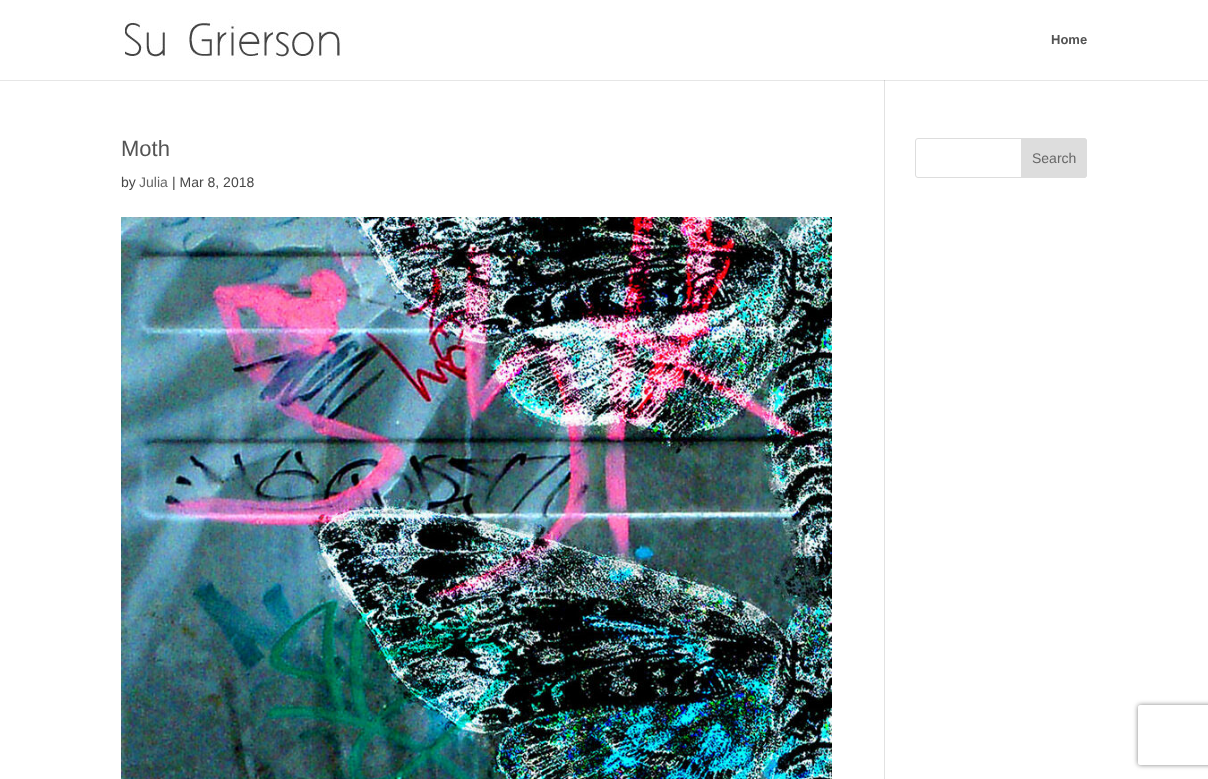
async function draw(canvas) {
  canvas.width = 1208
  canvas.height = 779
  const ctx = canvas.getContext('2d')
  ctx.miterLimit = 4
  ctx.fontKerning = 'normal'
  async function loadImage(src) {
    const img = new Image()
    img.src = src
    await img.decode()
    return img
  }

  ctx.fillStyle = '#fff'
  ctx.fillRect(0, 0, 1208, 779)
  ctx.fillStyle = '#e6e6e6'
  ctx.fillRect(0, 80, 1208, 1)
  ctx.drawImage(await loadImage('image0.png'), 125, 19, 216, 40)
  ctx.font = 'bold 13px Liberation Sans'
  ctx.fillStyle = '#545454'
  ctx.fillText('Home', 1051, 44)
  ctx.fillStyle = '#e2e2e2'
  ctx.fillRect(884, 80, 1, 699)
  ctx.fillStyle = '#cbcbcb'
  ctx.fillRect(884, 80, 1, 1)
  ctx.font = '22px Liberation Sans'
  ctx.fillStyle = '#545454'
  ctx.fillText('Moth', 121, 156)
  ctx.font = '14px Liberation Sans'
  ctx.fillStyle = '#474747'
  ctx.fillText('by', 121, 187)
  ctx.fillStyle = '#666'
  ctx.fillText('Julia', 139, 187)
  ctx.fillStyle = '#474747'
  ctx.fillText('| Mar 8, 2018', 172, 187)
  ctx.drawImage(await loadImage('image1.png'), 121, 217, 711, 562)
  ctx.beginPath()
  ctx.roundRect(915.5, 138.5, 171, 39, 2.5)
  ctx.strokeStyle = '#ddd'
  ctx.stroke()
  ctx.fillStyle = '#ddd'
  ctx.beginPath()
  ctx.roundRect(1021.5, 138.5, 65, 39, [0, 2.5, 2.5, 0])
  ctx.fill()
  ctx.stroke()
  ctx.fillStyle = '#666'
  ctx.fillText('Search', 1032, 163)
  ctx.save()
  ctx.beginPath()
  ctx.moveTo(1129, 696)
  ctx.lineTo(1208, 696)
  ctx.lineTo(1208, 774)
  ctx.lineTo(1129, 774)
  ctx.closePath()
  ctx.moveTo(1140, 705)
  ctx.lineTo(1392, 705)
  ctx.bezierCurveTo(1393, 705, 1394, 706, 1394, 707)
  ctx.lineTo(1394, 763)
  ctx.bezierCurveTo(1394, 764, 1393, 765, 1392, 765)
  ctx.lineTo(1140, 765)
  ctx.bezierCurveTo(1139, 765, 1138, 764, 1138, 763)
  ctx.lineTo(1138, 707)
  ctx.bezierCurveTo(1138, 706, 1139, 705, 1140, 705)
  ctx.closePath()
  ctx.clip('evenodd')
  ctx.fillStyle = '#808080'
  ctx.filter = 'blur(2.5px)'
  ctx.beginPath()
  ctx.roundRect(1138, 705, 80, 60, 2)
  ctx.fill()
  ctx.filter = 'none'
  ctx.restore()
}

draw(document.querySelector('canvas'))
